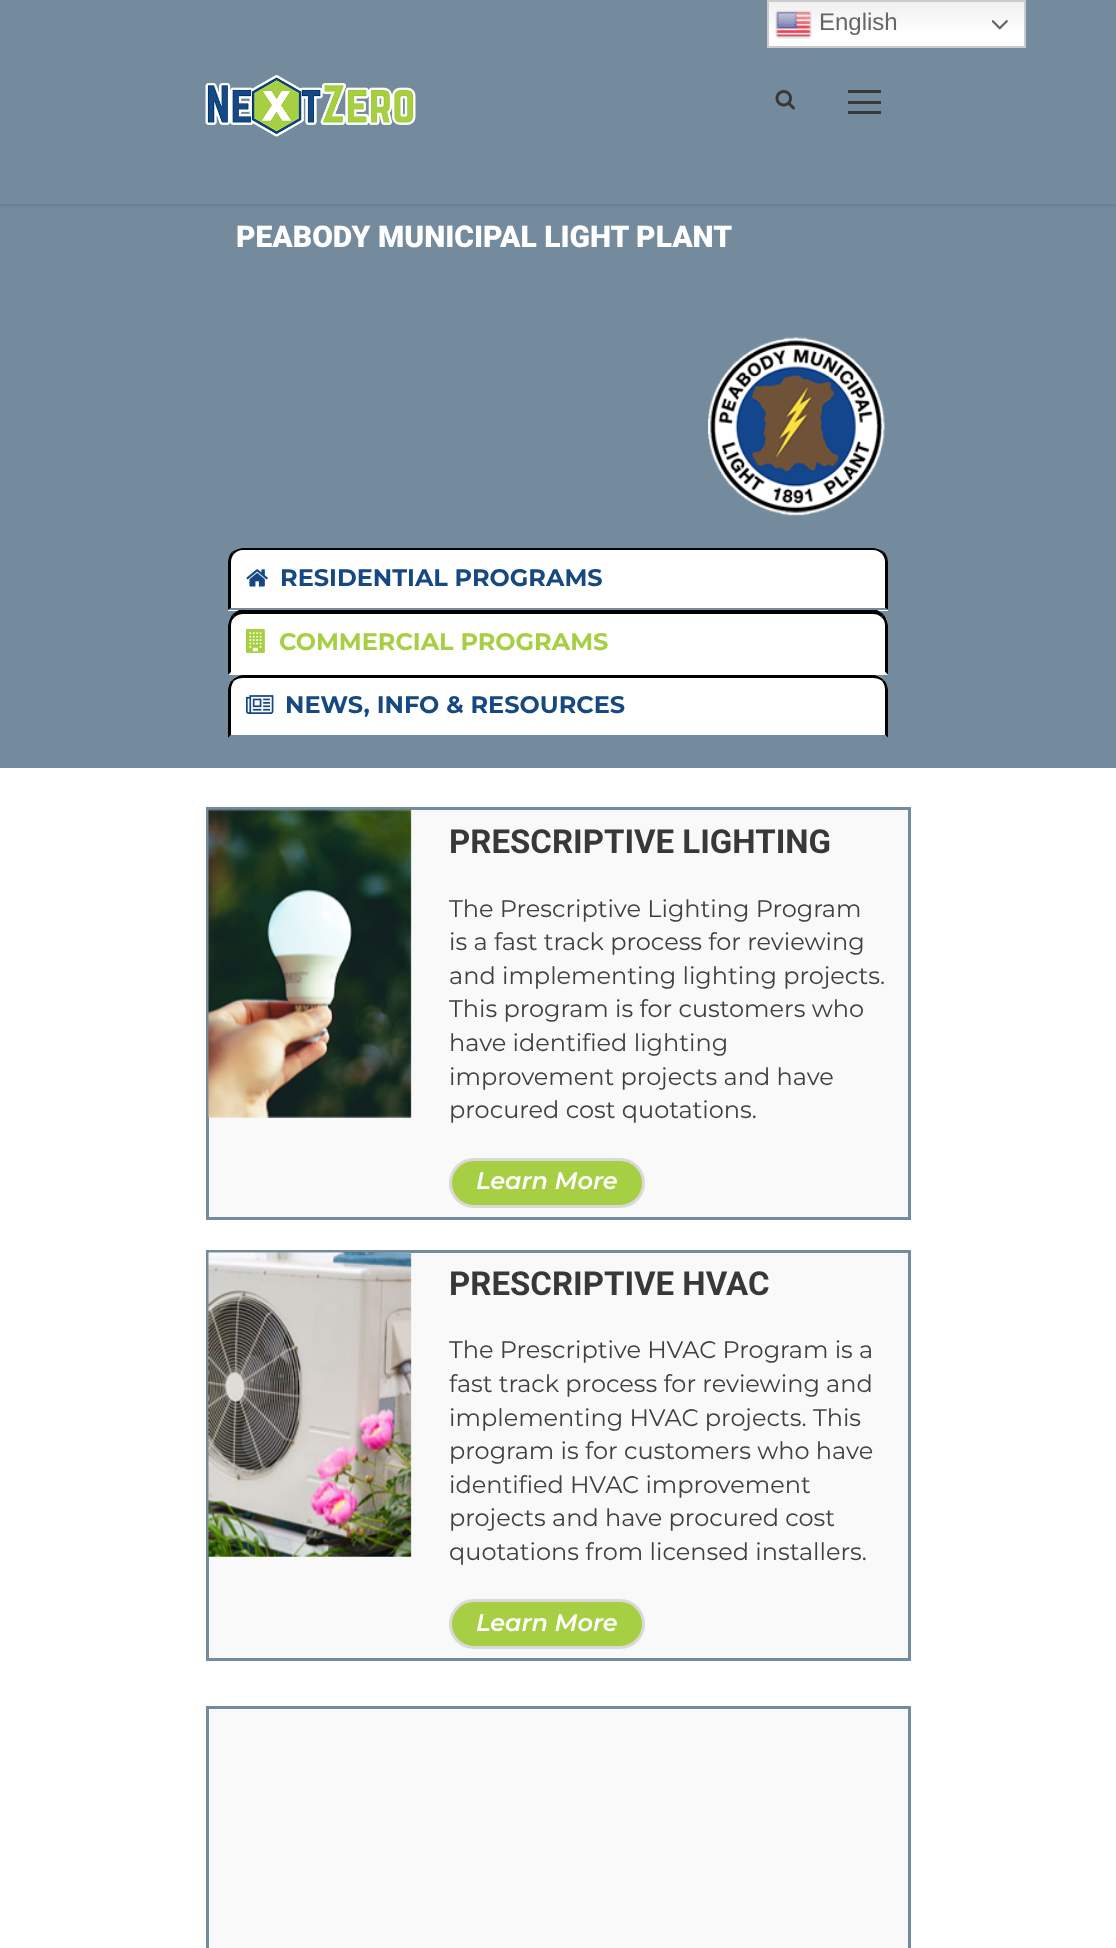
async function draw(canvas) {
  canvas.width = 1116
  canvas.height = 1948
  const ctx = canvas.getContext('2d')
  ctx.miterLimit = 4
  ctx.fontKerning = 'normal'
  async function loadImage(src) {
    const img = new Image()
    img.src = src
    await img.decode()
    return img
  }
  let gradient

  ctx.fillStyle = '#fff'
  ctx.fillRect(0, 0, 1116, 1948)
  ctx.fillStyle = '#748b9e'
  ctx.fillRect(0, 204, 1116, 564)
  ctx.fillStyle = '#0000001a'
  ctx.filter = 'blur(1.5px)'
  ctx.beginPath()
  ctx.rect(0, 2, 1116, 204)
  ctx.fill()
  ctx.filter = 'none'
  ctx.fillStyle = '#748b9e'
  ctx.fillRect(0, 0, 1116, 204)
  ctx.drawImage(await loadImage('image0.png'), 205, 75, 211, 62)
  ctx.drawImage(await loadImage('image1.png'), 775, 90, 20, 20)
  ctx.fillStyle = '#383838'
  ctx.fillRect(848, 90, 33, 3)
  ctx.fillRect(848, 101, 33, 3)
  ctx.fillRect(848, 111, 33, 3)
  gradient = ctx.createLinearGradient(896, 0, 896, 48)
  gradient.addColorStop(0, '#efefef')
  gradient.addColorStop(0.7, '#fff')
  ctx.fillStyle = gradient
  ctx.fillRect(769, 2, 255, 44)
  ctx.strokeStyle = '#ccc'
  ctx.lineWidth = 2
  ctx.strokeRect(768, 1, 257, 46)
  ctx.drawImage(await loadImage('image2.png'), 775, 10, 37, 29)
  ctx.font = '24px Liberation Sans'
  ctx.fillStyle = '#666'
  ctx.fillText('English', 819, 30)
  ctx.drawImage(await loadImage('image3.png'), 992, 20, 16, 10)
  ctx.font = '900 30px Roboto'
  ctx.fillStyle = '#fff'
  ctx.fillText('PEABODY MUNICIPAL LIGHT PLANT', 236, 247)
  ctx.drawImage(await loadImage('image4.png'), 708, 337, 177, 179)
  ctx.beginPath()
  ctx.roundRect(228, 548, 660, 63, [15, 15, 0, 0])
  ctx.fill()
  ctx.fillStyle = '#000'
  ctx.beginPath()
  ctx.moveTo(243, 548)
  ctx.bezierCurveTo(239, 548, 235, 550, 232, 552)
  ctx.lineTo(234, 554)
  ctx.bezierCurveTo(236, 552, 239, 550, 243, 550)
  ctx.lineTo(873, 550)
  ctx.bezierCurveTo(877, 550, 880, 552, 882, 554)
  ctx.lineTo(884, 552)
  ctx.bezierCurveTo(881, 550, 877, 548, 873, 548)
  ctx.closePath()
  ctx.fill()
  ctx.beginPath()
  ctx.moveTo(884, 552)
  ctx.bezierCurveTo(886, 554, 888, 558, 888, 562)
  ctx.lineTo(888, 610)
  ctx.lineTo(885, 608)
  ctx.lineTo(885, 562)
  ctx.bezierCurveTo(885, 559, 884, 556, 882, 554)
  ctx.closePath()
  ctx.fill()
  ctx.fillStyle = '#748b9e'
  ctx.beginPath()
  ctx.moveTo(888, 610)
  ctx.lineTo(228, 610)
  ctx.lineTo(231, 608)
  ctx.lineTo(885, 608)
  ctx.closePath()
  ctx.fill()
  ctx.fillStyle = '#000'
  ctx.beginPath()
  ctx.moveTo(228, 562)
  ctx.lineTo(228, 610)
  ctx.lineTo(231, 608)
  ctx.lineTo(231, 562)
  ctx.bezierCurveTo(231, 559, 232, 556, 234, 554)
  ctx.lineTo(232, 552)
  ctx.bezierCurveTo(230, 554, 228, 558, 228, 562)
  ctx.closePath()
  ctx.fill()
  ctx.drawImage(await loadImage('image5.png'), 246, 569, 22, 18)
  ctx.font = 'bold 24px Montserrat'
  ctx.fillStyle = '#164882'
  ctx.fillText('RESIDENTIAL PROGRAMS', 280, 586)
  ctx.fillStyle = '#fff'
  ctx.beginPath()
  ctx.roundRect(228, 611, 660, 64, [15, 15, 0, 0])
  ctx.fill()
  ctx.fillStyle = '#000'
  ctx.beginPath()
  ctx.moveTo(243, 614)
  ctx.bezierCurveTo(240, 614, 237, 615, 235, 617)
  ctx.lineTo(232, 615)
  ctx.bezierCurveTo(234, 613, 237, 611, 239, 610)
  ctx.lineTo(877, 610)
  ctx.bezierCurveTo(879, 611, 882, 613, 884, 615)
  ctx.lineTo(881, 617)
  ctx.bezierCurveTo(879, 615, 876, 614, 873, 614)
  ctx.closePath()
  ctx.fill()
  ctx.beginPath()
  ctx.moveTo(888, 675)
  ctx.lineTo(888, 626)
  ctx.bezierCurveTo(888, 622, 886, 618, 884, 615)
  ctx.lineTo(881, 617)
  ctx.bezierCurveTo(884, 619, 885, 622, 885, 626)
  ctx.lineTo(885, 672)
  ctx.closePath()
  ctx.fill()
  ctx.fillStyle = '#fff'
  ctx.beginPath()
  ctx.moveTo(888, 675)
  ctx.lineTo(885, 672)
  ctx.lineTo(231, 672)
  ctx.lineTo(228, 675)
  ctx.closePath()
  ctx.fill()
  ctx.fillStyle = '#000'
  ctx.beginPath()
  ctx.moveTo(228, 675)
  ctx.lineTo(231, 672)
  ctx.lineTo(231, 626)
  ctx.bezierCurveTo(231, 622, 232, 619, 235, 617)
  ctx.lineTo(232, 615)
  ctx.bezierCurveTo(230, 618, 228, 622, 228, 626)
  ctx.closePath()
  ctx.fill()
  ctx.drawImage(await loadImage('image6.png'), 246, 628, 19, 25)
  ctx.fillStyle = '#a7cf43'
  ctx.fillText('COMMERCIAL PROGRAMS', 279, 650)
  ctx.fillStyle = '#fff'
  ctx.beginPath()
  ctx.roundRect(228, 675, 660, 63, [15, 15, 0, 0])
  ctx.fill()
  ctx.fillStyle = '#000'
  ctx.beginPath()
  ctx.moveTo(243, 675)
  ctx.bezierCurveTo(239, 675, 235, 677, 232, 680)
  ctx.lineTo(234, 681)
  ctx.bezierCurveTo(236, 679, 240, 678, 243, 678)
  ctx.lineTo(873, 678)
  ctx.bezierCurveTo(876, 678, 880, 679, 882, 681)
  ctx.lineTo(884, 680)
  ctx.bezierCurveTo(881, 677, 877, 675, 873, 675)
  ctx.closePath()
  ctx.fill()
  ctx.beginPath()
  ctx.moveTo(888, 738)
  ctx.lineTo(888, 690)
  ctx.bezierCurveTo(888, 686, 886, 682, 884, 680)
  ctx.lineTo(882, 681)
  ctx.bezierCurveTo(884, 684, 885, 686, 885, 690)
  ctx.lineTo(885, 735)
  ctx.closePath()
  ctx.fill()
  ctx.fillStyle = '#748b9e'
  ctx.beginPath()
  ctx.moveTo(888, 738)
  ctx.lineTo(885, 735)
  ctx.lineTo(231, 735)
  ctx.lineTo(228, 738)
  ctx.closePath()
  ctx.fill()
  ctx.fillStyle = '#000'
  ctx.beginPath()
  ctx.moveTo(228, 738)
  ctx.lineTo(231, 735)
  ctx.lineTo(231, 690)
  ctx.bezierCurveTo(231, 686, 232, 684, 234, 681)
  ctx.lineTo(232, 680)
  ctx.bezierCurveTo(230, 682, 228, 686, 228, 690)
  ctx.closePath()
  ctx.fill()
  ctx.drawImage(await loadImage('image7.png'), 246, 695, 28, 19)
  ctx.fillStyle = '#164882'
  ctx.fillText('NEWS, INFO & RESOURCES', 285, 713)
  ctx.strokeStyle = '#748b9e'
  ctx.lineWidth = 3
  ctx.strokeRect(207.5, 808.5, 702, 410)
  ctx.fillStyle = '#f9f9f9'
  ctx.fillRect(209, 810, 699, 407)
  ctx.drawImage(await loadImage('image8.png'), 208, 809, 204, 309)
  ctx.font = 'bold 33px Roboto'
  ctx.fillStyle = '#383838'
  ctx.fillText('PRESCRIPTIVE LIGHTING', 449, 853)
  ctx.font = '24px Montserrat'
  ctx.fillStyle = '#404040'
  ctx.fillText('The Prescriptive Lighting Program', 449, 917)
  ctx.fillText('is a fast track process for reviewing', 449, 950)
  ctx.fillText('and implementing lighting projects.', 449, 984)
  ctx.fillText('This program is for customers who', 449, 1017)
  ctx.fillText('have identified lighting', 449, 1051)
  ctx.fillText('improvement projects and have', 449, 1085)
  ctx.fillText('procured cost quotations.', 449, 1118)
  ctx.fillStyle = '#a7cf43'
  ctx.beginPath()
  ctx.roundRect(450.5, 1159.5, 193, 47, 23.5)
  ctx.fill()
  ctx.strokeStyle = '#d9d9d9'
  ctx.stroke()
  ctx.font = 'italic 600 24px Montserrat'
  ctx.fillStyle = '#fff'
  ctx.fillText('Learn More', 476, 1189)
  ctx.strokeStyle = '#748b9e'
  ctx.strokeRect(207.5, 1251.5, 702, 408)
  ctx.fillStyle = '#f9f9f9'
  ctx.fillRect(209, 1253, 699, 405)
  ctx.drawImage(await loadImage('image9.png'), 208, 1252, 204, 305)
  ctx.font = 'bold 33px Roboto'
  ctx.fillStyle = '#383838'
  ctx.fillText('PRESCRIPTIVE HVAC', 449, 1295)
  ctx.font = '24px Montserrat'
  ctx.fillStyle = '#404040'
  ctx.fillText('The Prescriptive HVAC Program is a', 449, 1358)
  ctx.fillText('fast track process for reviewing and', 449, 1392)
  ctx.fillText('implementing HVAC projects. This', 449, 1426)
  ctx.fillText('program is for customers who have', 449, 1459)
  ctx.fillText('identified HVAC improvement', 449, 1493)
  ctx.fillText('projects and have procured cost', 449, 1526)
  ctx.fillText('quotations from licensed installers.', 449, 1560)
  ctx.fillStyle = '#a7cf43'
  ctx.beginPath()
  ctx.roundRect(450.5, 1600.5, 193, 47, 23.5)
  ctx.fill()
  ctx.strokeStyle = '#d9d9d9'
  ctx.stroke()
  ctx.font = 'italic 600 24px Montserrat'
  ctx.fillStyle = '#fff'
  ctx.fillText('Learn More', 476, 1631)
  ctx.strokeStyle = '#748b9e'
  ctx.strokeRect(207.5, 1707.5, 702, 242)
  ctx.fillStyle = '#f9f9f9'
  ctx.fillRect(209, 1709, 699, 239)
}

draw(document.querySelector('canvas'))
